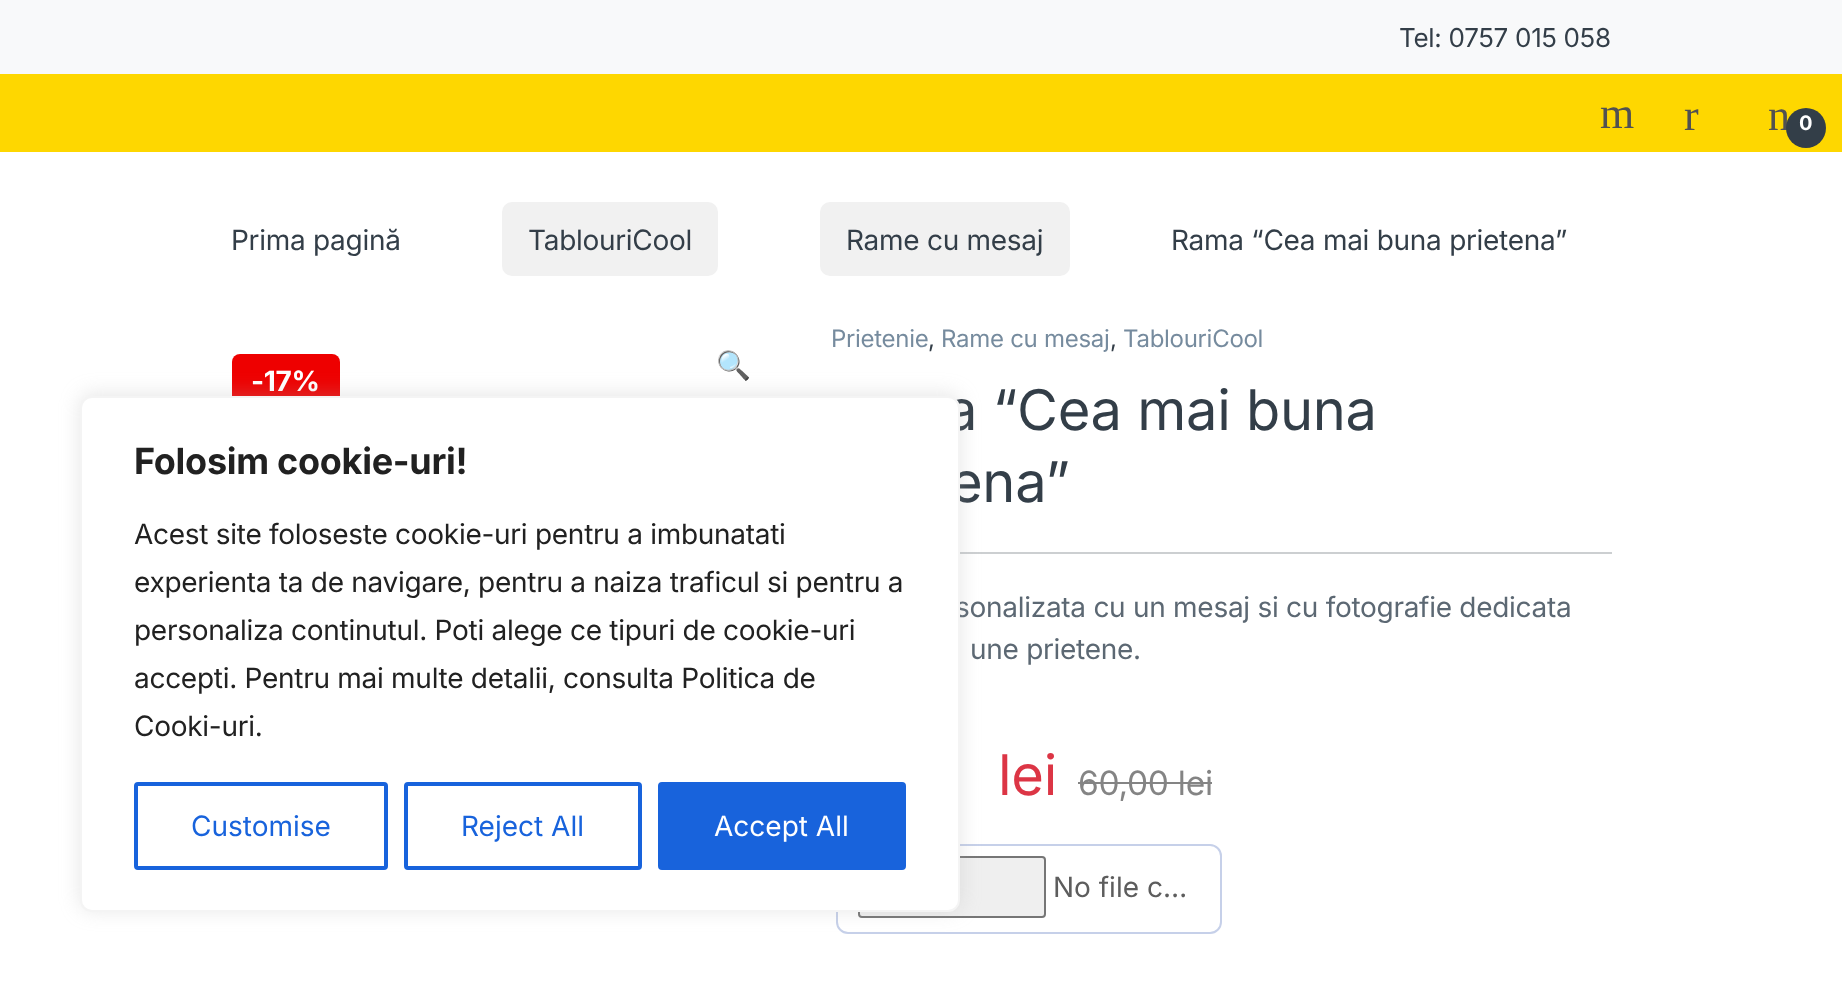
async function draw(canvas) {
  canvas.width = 1842
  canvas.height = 992
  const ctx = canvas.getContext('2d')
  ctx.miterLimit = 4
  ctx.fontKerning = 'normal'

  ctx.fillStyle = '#fff'
  ctx.fillRect(0, 0, 1842, 992)
  ctx.fillStyle = '#f8f9fa'
  ctx.fillRect(0, 0, 1842, 74)
  ctx.letterSpacing = '-0.28px'
  ctx.font = '26px Inter'
  ctx.fillStyle = '#333e48'
  ctx.fillText('Tel: 0757 015 058', 1399, 47)
  ctx.fillStyle = '#fed700'
  ctx.fillRect(0, 74, 1842, 78)
  ctx.font = '44px Liberation Serif'
  ctx.fillStyle = '#515151'
  ctx.fillText('m', 1600, 128)
  ctx.fillText('r', 1684, 130)
  ctx.fillText('n', 1768, 130)
  ctx.fillStyle = '#333e48'
  ctx.beginPath()
  ctx.arc(1806, 128, 20, 0, 2 * Math.PI)
  ctx.fill()
  ctx.font = 'bold 20px Inter'
  ctx.fillStyle = '#fff'
  ctx.fillText('0', 1799, 130)
  ctx.font = '28px Inter'
  ctx.fillStyle = '#333e48'
  ctx.fillText('Prima pagină', 231, 250)
  ctx.fillStyle = '#f1f1f1'
  ctx.beginPath()
  ctx.roundRect(502, 202, 216, 74, 10)
  ctx.fill()
  ctx.fillStyle = '#333e48'
  ctx.fillText('TablouriCool', 528, 250)
  ctx.fillStyle = '#f1f1f1'
  ctx.beginPath()
  ctx.roundRect(820, 202, 250, 74, 10)
  ctx.fill()
  ctx.fillStyle = '#333e48'
  ctx.fillText('Rame cu mesaj', 846, 250)
  ctx.fillText('Rama “Cea mai buna prietena”', 1171, 250)
  ctx.fillStyle = '#e00'
  ctx.beginPath()
  ctx.roundRect(232, 354, 108, 56, 8)
  ctx.fill()
  ctx.font = 'bold 28px Inter'
  ctx.fillStyle = '#fff'
  ctx.fillText('-17%', 251, 391)
  ctx.font = '28px Noto Color Emoji'
  ctx.fillStyle = '#333e48'
  ctx.fillText('🔍', 716, 375)
  ctx.font = '24px Inter'
  ctx.fillStyle = '#768b9e'
  ctx.fillText('Prietenie', 831, 347)
  ctx.fillStyle = '#333e48'
  ctx.fillText(',', 928, 347)
  ctx.fillStyle = '#768b9e'
  ctx.fillText('Rame cu mesaj', 941, 347)
  ctx.fillStyle = '#333e48'
  ctx.fillText(',', 1110, 347)
  ctx.fillStyle = '#768b9e'
  ctx.fillText('TablouriCool', 1123, 347)
  ctx.font = '56px Inter'
  ctx.fillStyle = '#333e48'
  ctx.fillText('a “Cea mai buna', 946, 430)
  ctx.fillText('ena”', 950, 502)
  ctx.fillStyle = '#cccfd1'
  ctx.fillRect(960, 552, 652, 2)
  ctx.font = '28px Inter'
  ctx.fillStyle = '#5c6873'
  ctx.fillText('sonalizata cu un mesaj si cu fotografie dedicata', 955, 617)
  ctx.fillText('une prietene.', 970, 659)
  ctx.font = '56px Inter'
  ctx.fillStyle = '#dc3545'
  ctx.fillText('lei', 998, 795)
  ctx.font = '33.5px Inter'
  ctx.fillStyle = '#848484'
  ctx.fillText('60,00 lei', 1078, 795)
  ctx.fillRect(1078, 782, 134, 2)
  ctx.beginPath()
  ctx.roundRect(837, 845, 384, 88, 11)
  ctx.strokeStyle = '#c6d0e9'
  ctx.lineWidth = 2
  ctx.stroke()
  ctx.fillStyle = '#efefef'
  ctx.beginPath()
  ctx.roundRect(859, 857, 186, 60, 3)
  ctx.fill()
  ctx.strokeStyle = '#767676'
  ctx.stroke()
  ctx.letterSpacing = '0px'
  ctx.font = '28px Inter'
  ctx.fillStyle = '#5d5d5d'
  ctx.fillText('No file c…', 1053, 897)
  ctx.fillStyle = '#acabab4d'
  ctx.filter = 'blur(10px)'
  ctx.beginPath()
  ctx.roundRect(80, 394, 880, 516, 12)
  ctx.fill()
  ctx.filter = 'none'
  ctx.fillStyle = '#fff'
  ctx.beginPath()
  ctx.roundRect(81, 397, 878, 514, 11)
  ctx.fill()
  ctx.strokeStyle = '#f4f4f4'
  ctx.stroke()
  ctx.letterSpacing = '-0.28px'
  ctx.font = 'bold 36px Inter'
  ctx.fillStyle = '#212121'
  ctx.fillText('Folosim cookie-uri!', 134, 474)
  ctx.font = '28px Inter'
  ctx.fillText('Acest site foloseste cookie-uri pentru a imbunatati', 134, 544)
  ctx.fillText('experienta ta de navigare, pentru a naiza traficul si pentru a', 134, 592)
  ctx.fillText('personaliza continutul. Poti alege ce tipuri de cookie-uri', 134, 640)
  ctx.fillText('accepti. Pentru mai multe detalii, consulta Politica de', 134, 688)
  ctx.fillText('Cooki-uri.', 134, 736)
  ctx.beginPath()
  ctx.roundRect(136, 784, 250, 84, 2)
  ctx.strokeStyle = '#1863dc'
  ctx.lineWidth = 4
  ctx.stroke()
  ctx.letterSpacing = '0px'
  ctx.fillStyle = '#1863dc'
  ctx.fillText('Customise', 191, 836)
  ctx.beginPath()
  ctx.roundRect(406, 784, 234, 84, 2)
  ctx.stroke()
  ctx.fillText('Reject All', 461, 836)
  ctx.beginPath()
  ctx.roundRect(660, 784, 244, 84, 2)
  ctx.fill()
  ctx.stroke()
  ctx.fillStyle = '#fff'
  ctx.fillText('Accept All', 714, 836)
}

draw(document.querySelector('canvas'))
